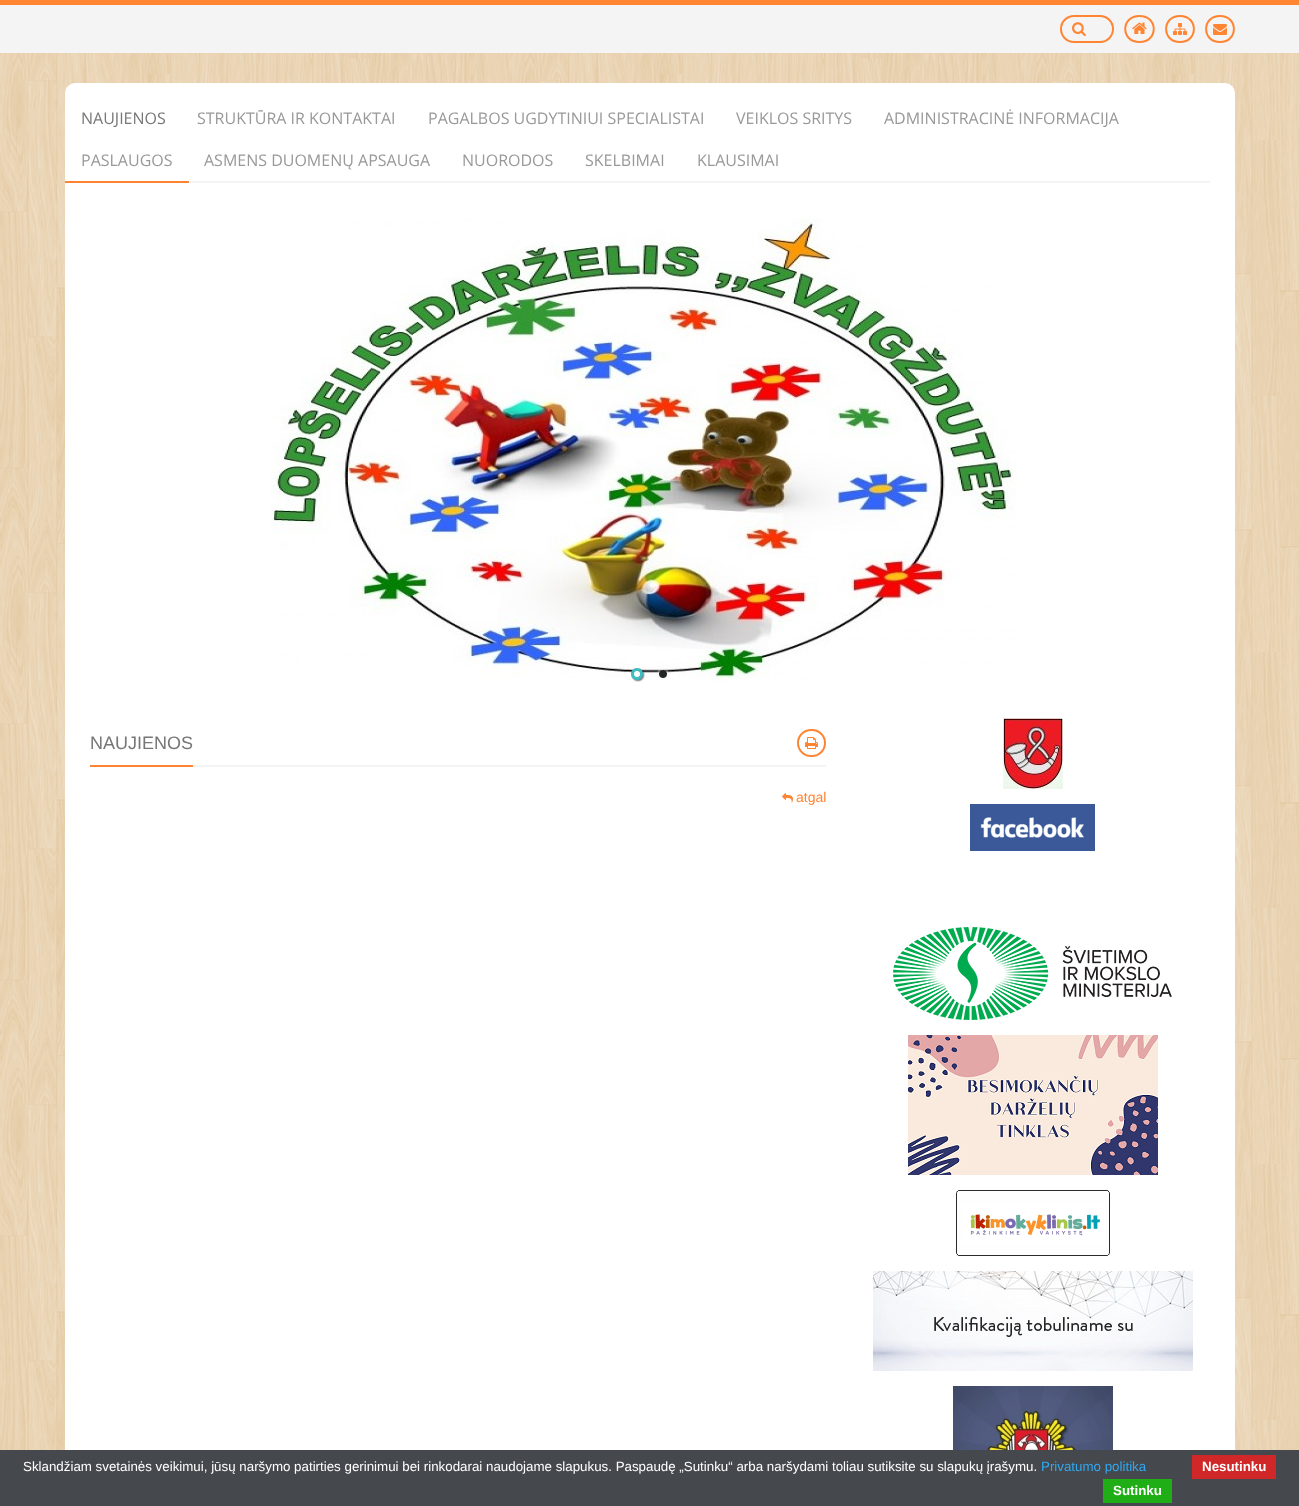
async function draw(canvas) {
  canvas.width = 1299
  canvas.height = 1506
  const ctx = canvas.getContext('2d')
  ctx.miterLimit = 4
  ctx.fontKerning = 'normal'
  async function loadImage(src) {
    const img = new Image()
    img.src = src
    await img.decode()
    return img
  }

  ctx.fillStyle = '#f4f4f4'
  ctx.fillRect(0, 0, 1299, 1506)
  ctx.fillStyle = '#ff8533'
  ctx.fillRect(0, 0, 1299, 5)
  ctx.beginPath()
  ctx.roundRect(1061, 16, 52, 26, 13)
  ctx.strokeStyle = '#ff8533'
  ctx.lineWidth = 2
  ctx.stroke()
  ctx.drawImage(await loadImage('image0.png'), 1072, 22, 14, 15)
  ctx.beginPath()
  ctx.moveTo(1139.5, 16)
  ctx.bezierCurveTo(1158.5, 16, 1158.5, 42, 1139.5, 42)
  ctx.bezierCurveTo(1120.5, 42, 1120.5, 16, 1139.5, 16)
  ctx.closePath()
  ctx.stroke()
  ctx.drawImage(await loadImage('image1.png'), 1132, 22, 15, 12)
  ctx.beginPath()
  ctx.moveTo(1180, 16)
  ctx.bezierCurveTo(1198.5, 16, 1198.5, 42, 1180, 42)
  ctx.bezierCurveTo(1161.5, 42, 1161.5, 16, 1180, 16)
  ctx.closePath()
  ctx.stroke()
  ctx.drawImage(await loadImage('image2.png'), 1173, 23, 14, 12)
  ctx.beginPath()
  ctx.moveTo(1220, 16)
  ctx.bezierCurveTo(1238.5, 16, 1238.5, 42, 1220, 42)
  ctx.bezierCurveTo(1201.5, 42, 1201.5, 16, 1220, 16)
  ctx.closePath()
  ctx.stroke()
  ctx.drawImage(await loadImage('image3.png'), 1213, 24, 14, 11)
  ctx.drawImage(await loadImage('image4.png'), 0, 53, 1299, 1397)
  ctx.fillStyle = '#fff'
  ctx.beginPath()
  ctx.roundRect(65, 83, 1170, 115, [10, 10, 0, 0])
  ctx.fill()
  ctx.fillStyle = '#f4f4f4'
  ctx.fillRect(189, 181, 1021, 2)
  ctx.font = '16px Open Sans'
  ctx.fillStyle = '#777'
  ctx.fillText('NAUJIENOS', 81, 124)
  ctx.fillStyle = '#999'
  ctx.fillText('STRUKTŪRA IR KONTAKTAI', 197, 124)
  ctx.fillText('PAGALBOS UGDYTINIUI SPECIALISTAI', 428, 124)
  ctx.fillText('VEIKLOS SRITYS', 736, 124)
  ctx.fillText('ADMINISTRACINĖ INFORMACIJA', 884, 124)
  ctx.fillText('PASLAUGOS', 81, 166)
  ctx.fillText('ASMENS DUOMENŲ APSAUGA', 204, 166)
  ctx.fillText('NUORODOS', 462, 166)
  ctx.fillText('SKELBIMAI', 585, 166)
  ctx.fillText('KLAUSIMAI', 697, 166)
  ctx.fillStyle = '#ff8533'
  ctx.fillRect(65, 181, 124, 2)
  ctx.fillStyle = '#fff'
  ctx.fillRect(65, 198, 1170, 1252)
  ctx.drawImage(await loadImage('image5.png'), 271, 218, 746, 463)
  ctx.drawImage(await loadImage('image6.png'), 631, 668, 14, 14)
  ctx.drawImage(await loadImage('image7.png'), 657, 668, 12, 12)
  ctx.fillStyle = '#f4f4f4'
  ctx.fillRect(193, 765, 633, 2)
  ctx.fillStyle = '#ff8533'
  ctx.fillRect(90, 765, 103, 2)
  ctx.font = '18px Liberation Sans'
  ctx.fillStyle = '#777'
  ctx.fillText('NAUJIENOS', 90, 749)
  ctx.beginPath()
  ctx.roundRect(798, 730, 27, 26, 13)
  ctx.stroke()
  ctx.drawImage(await loadImage('image8.png'), 805, 737, 13, 12)
  ctx.drawImage(await loadImage('image9.png'), 782, 793, 11, 10)
  ctx.font = '14px Liberation Sans'
  ctx.fillStyle = '#ff8533'
  ctx.fillText('atgal', 796, 802)
  ctx.drawImage(await loadImage('image10.png'), 1003, 718, 60, 71)
  ctx.drawImage(await loadImage('image11.png'), 970, 804, 125, 47)
  ctx.drawImage(await loadImage('image12.png'), 893, 927, 279, 93)
  ctx.drawImage(await loadImage('image13.png'), 908, 1035, 250, 140)
  ctx.drawImage(await loadImage('image14.png'), 956, 1190, 154, 66)
  ctx.drawImage(await loadImage('image15.png'), 873, 1271, 320, 100)
  ctx.drawImage(await loadImage('image16.png'), 953, 1386, 160, 64)
  ctx.fillStyle = '#45484d'
  ctx.fillRect(0, 1450, 1299, 56)
  ctx.font = '13.33px Liberation Sans'
  ctx.fillStyle = '#fff'
  ctx.fillText('Sklandžiam svetainės veikimui, jūsų naršymo patirties gerinimui bei rinkodarai naudojame slapukus. Paspaudę „Sutinku“ arba naršydami toliau sutiksite su slapukų įrašymu.', 23, 1471)
  ctx.fillStyle = '#31a8f0'
  ctx.fillText('Privatumo politika', 1041, 1471)
  ctx.fillStyle = '#d02828'
  ctx.fillRect(1192, 1455, 84, 24)
  ctx.font = 'bold 13.33px Liberation Sans'
  ctx.fillStyle = '#fff'
  ctx.fillText('Nesutinku', 1202, 1471)
  ctx.fillStyle = '#1fae16'
  ctx.fillRect(1103, 1479, 69, 24)
  ctx.fillStyle = '#fff'
  ctx.fillText('Sutinku', 1113, 1495)
}

draw(document.querySelector('canvas'))
